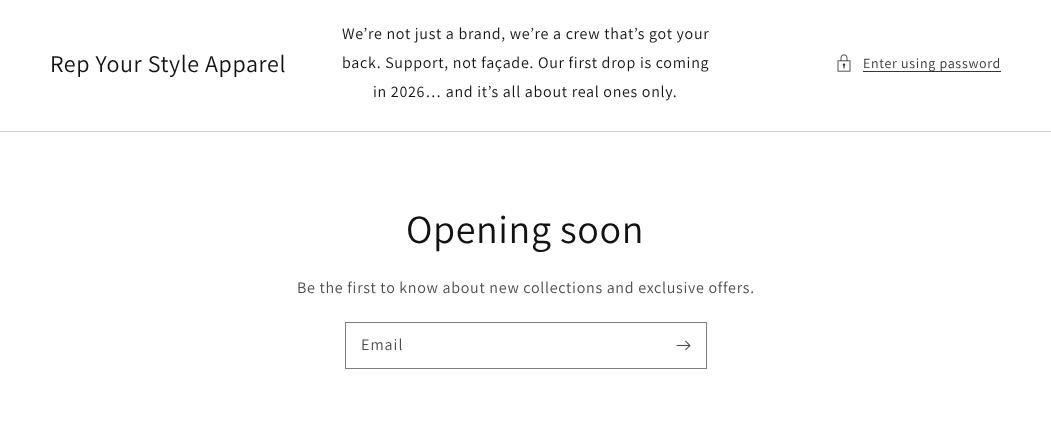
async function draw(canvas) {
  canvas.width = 1051
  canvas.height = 434
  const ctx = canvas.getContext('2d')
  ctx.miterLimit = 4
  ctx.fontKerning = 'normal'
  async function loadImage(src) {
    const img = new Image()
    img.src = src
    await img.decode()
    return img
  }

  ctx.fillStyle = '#fff'
  ctx.fillRect(0, 0, 1051, 434)
  ctx.letterSpacing = '0.6px'
  ctx.font = '24px Assistant'
  ctx.fillStyle = '#121212'
  ctx.fillText('Rep Your Style Apparel', 50, 72)
  ctx.letterSpacing = '0.7px'
  ctx.font = '16px Assistant'
  ctx.fillText('We’re not just a brand, we’re a crew that’s got your', 342, 39)
  ctx.fillText('back. Support, not façade. Our first drop is coming', 342, 68)
  ctx.fillText('in 2026… and it’s all about real ones only.', 373, 97)
  ctx.drawImage(await loadImage('image0.png'), 837, 54, 14, 18)
  ctx.fillStyle = '#363636'
  ctx.fillRect(863, 71, 138, 1)
  ctx.font = '14px Assistant'
  ctx.fillStyle = '#353535'
  ctx.fillText('Enter using password', 863, 68)
  ctx.fillStyle = '#d0d0d0'
  ctx.fillRect(0, 131, 1051, 1)
  ctx.letterSpacing = '0.6px'
  ctx.font = '40px Assistant'
  ctx.fillStyle = '#121212'
  ctx.fillText('Opening soon', 406, 243)
  ctx.letterSpacing = '0.7px'
  ctx.font = '16px Assistant'
  ctx.fillStyle = '#4d4d4d'
  ctx.fillText('Be the first to know about new collections and exclusive offers.', 297, 293)
  ctx.strokeStyle = '#7d7d7d'
  ctx.strokeRect(345.5, 322.5, 361, 46)
  ctx.letterSpacing = '1px'
  ctx.fillText('Email', 361, 350)
  ctx.drawImage(await loadImage('image1.png'), 676, 340, 15, 11)
}

draw(document.querySelector('canvas'))
